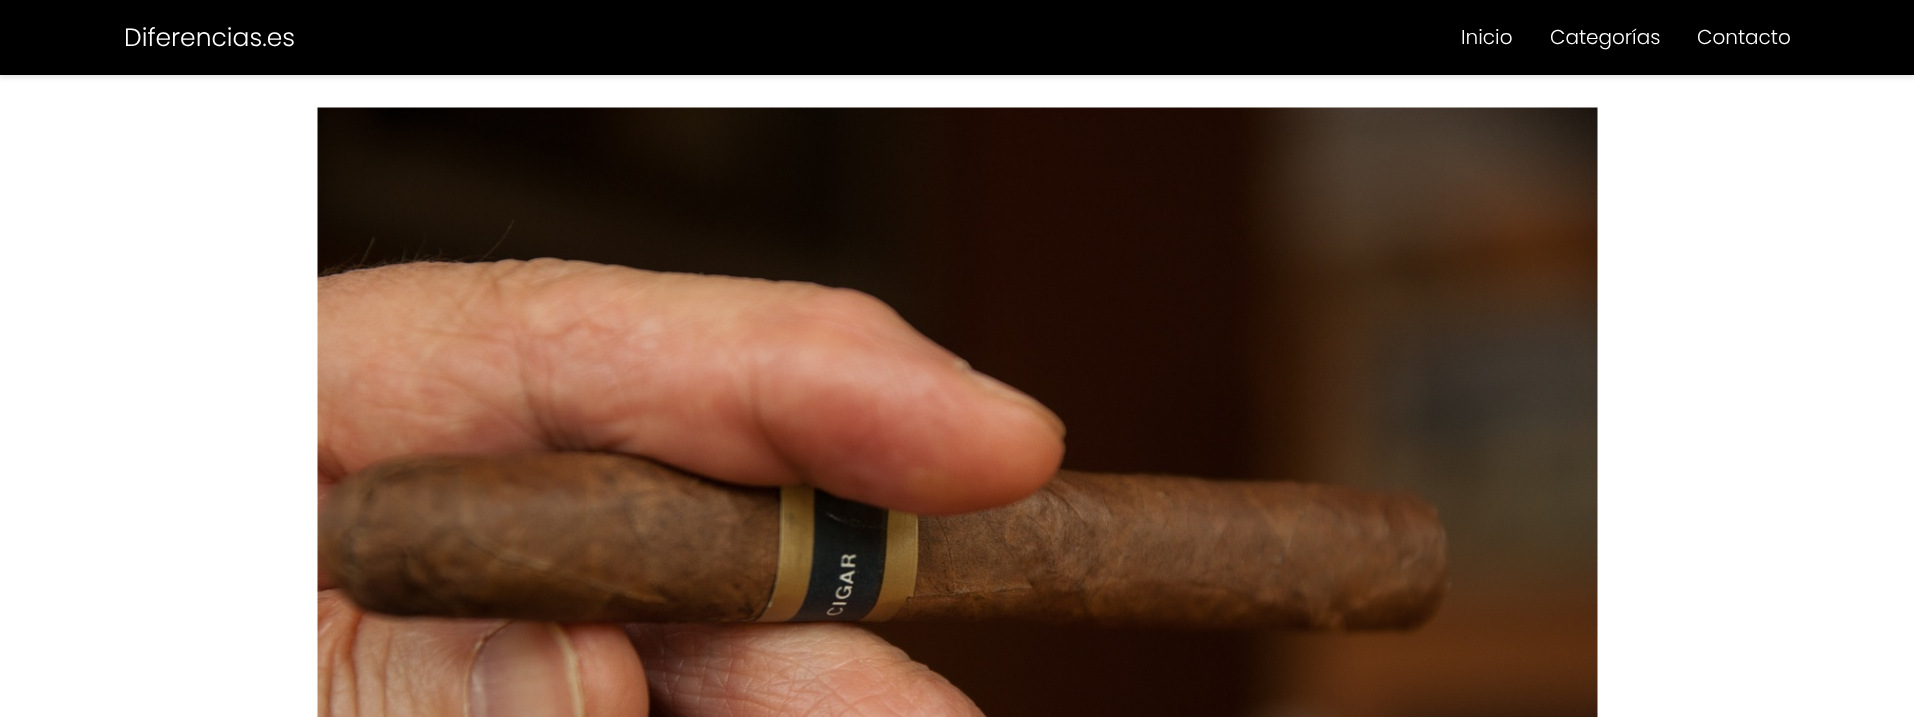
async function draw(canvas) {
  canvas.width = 1914
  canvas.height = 717
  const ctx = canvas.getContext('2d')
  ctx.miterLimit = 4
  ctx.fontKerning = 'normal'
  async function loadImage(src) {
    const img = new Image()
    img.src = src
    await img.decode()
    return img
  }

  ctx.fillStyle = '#fff'
  ctx.fillRect(0, 0, 1914, 717)
  ctx.fillStyle = '#0000001a'
  ctx.filter = 'blur(2.5px)'
  ctx.beginPath()
  ctx.rect(0, 3, 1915, 75)
  ctx.fill()
  ctx.filter = 'none'
  ctx.fillStyle = '#000'
  ctx.fillRect(0, 0, 1914, 75)
  ctx.font = '300 25px Poppins'
  ctx.fillStyle = '#fff'
  ctx.fillText('Diferencias.es', 124, 46)
  ctx.font = '300 20px Poppins'
  ctx.fillText('Inicio', 1461, 44)
  ctx.fillText('Categorías', 1550, 44)
  ctx.fillText('Contacto', 1697, 44)
  ctx.drawImage(await loadImage('image0.png'), 317, 107, 1281, 610)
}

draw(document.querySelector('canvas'))
